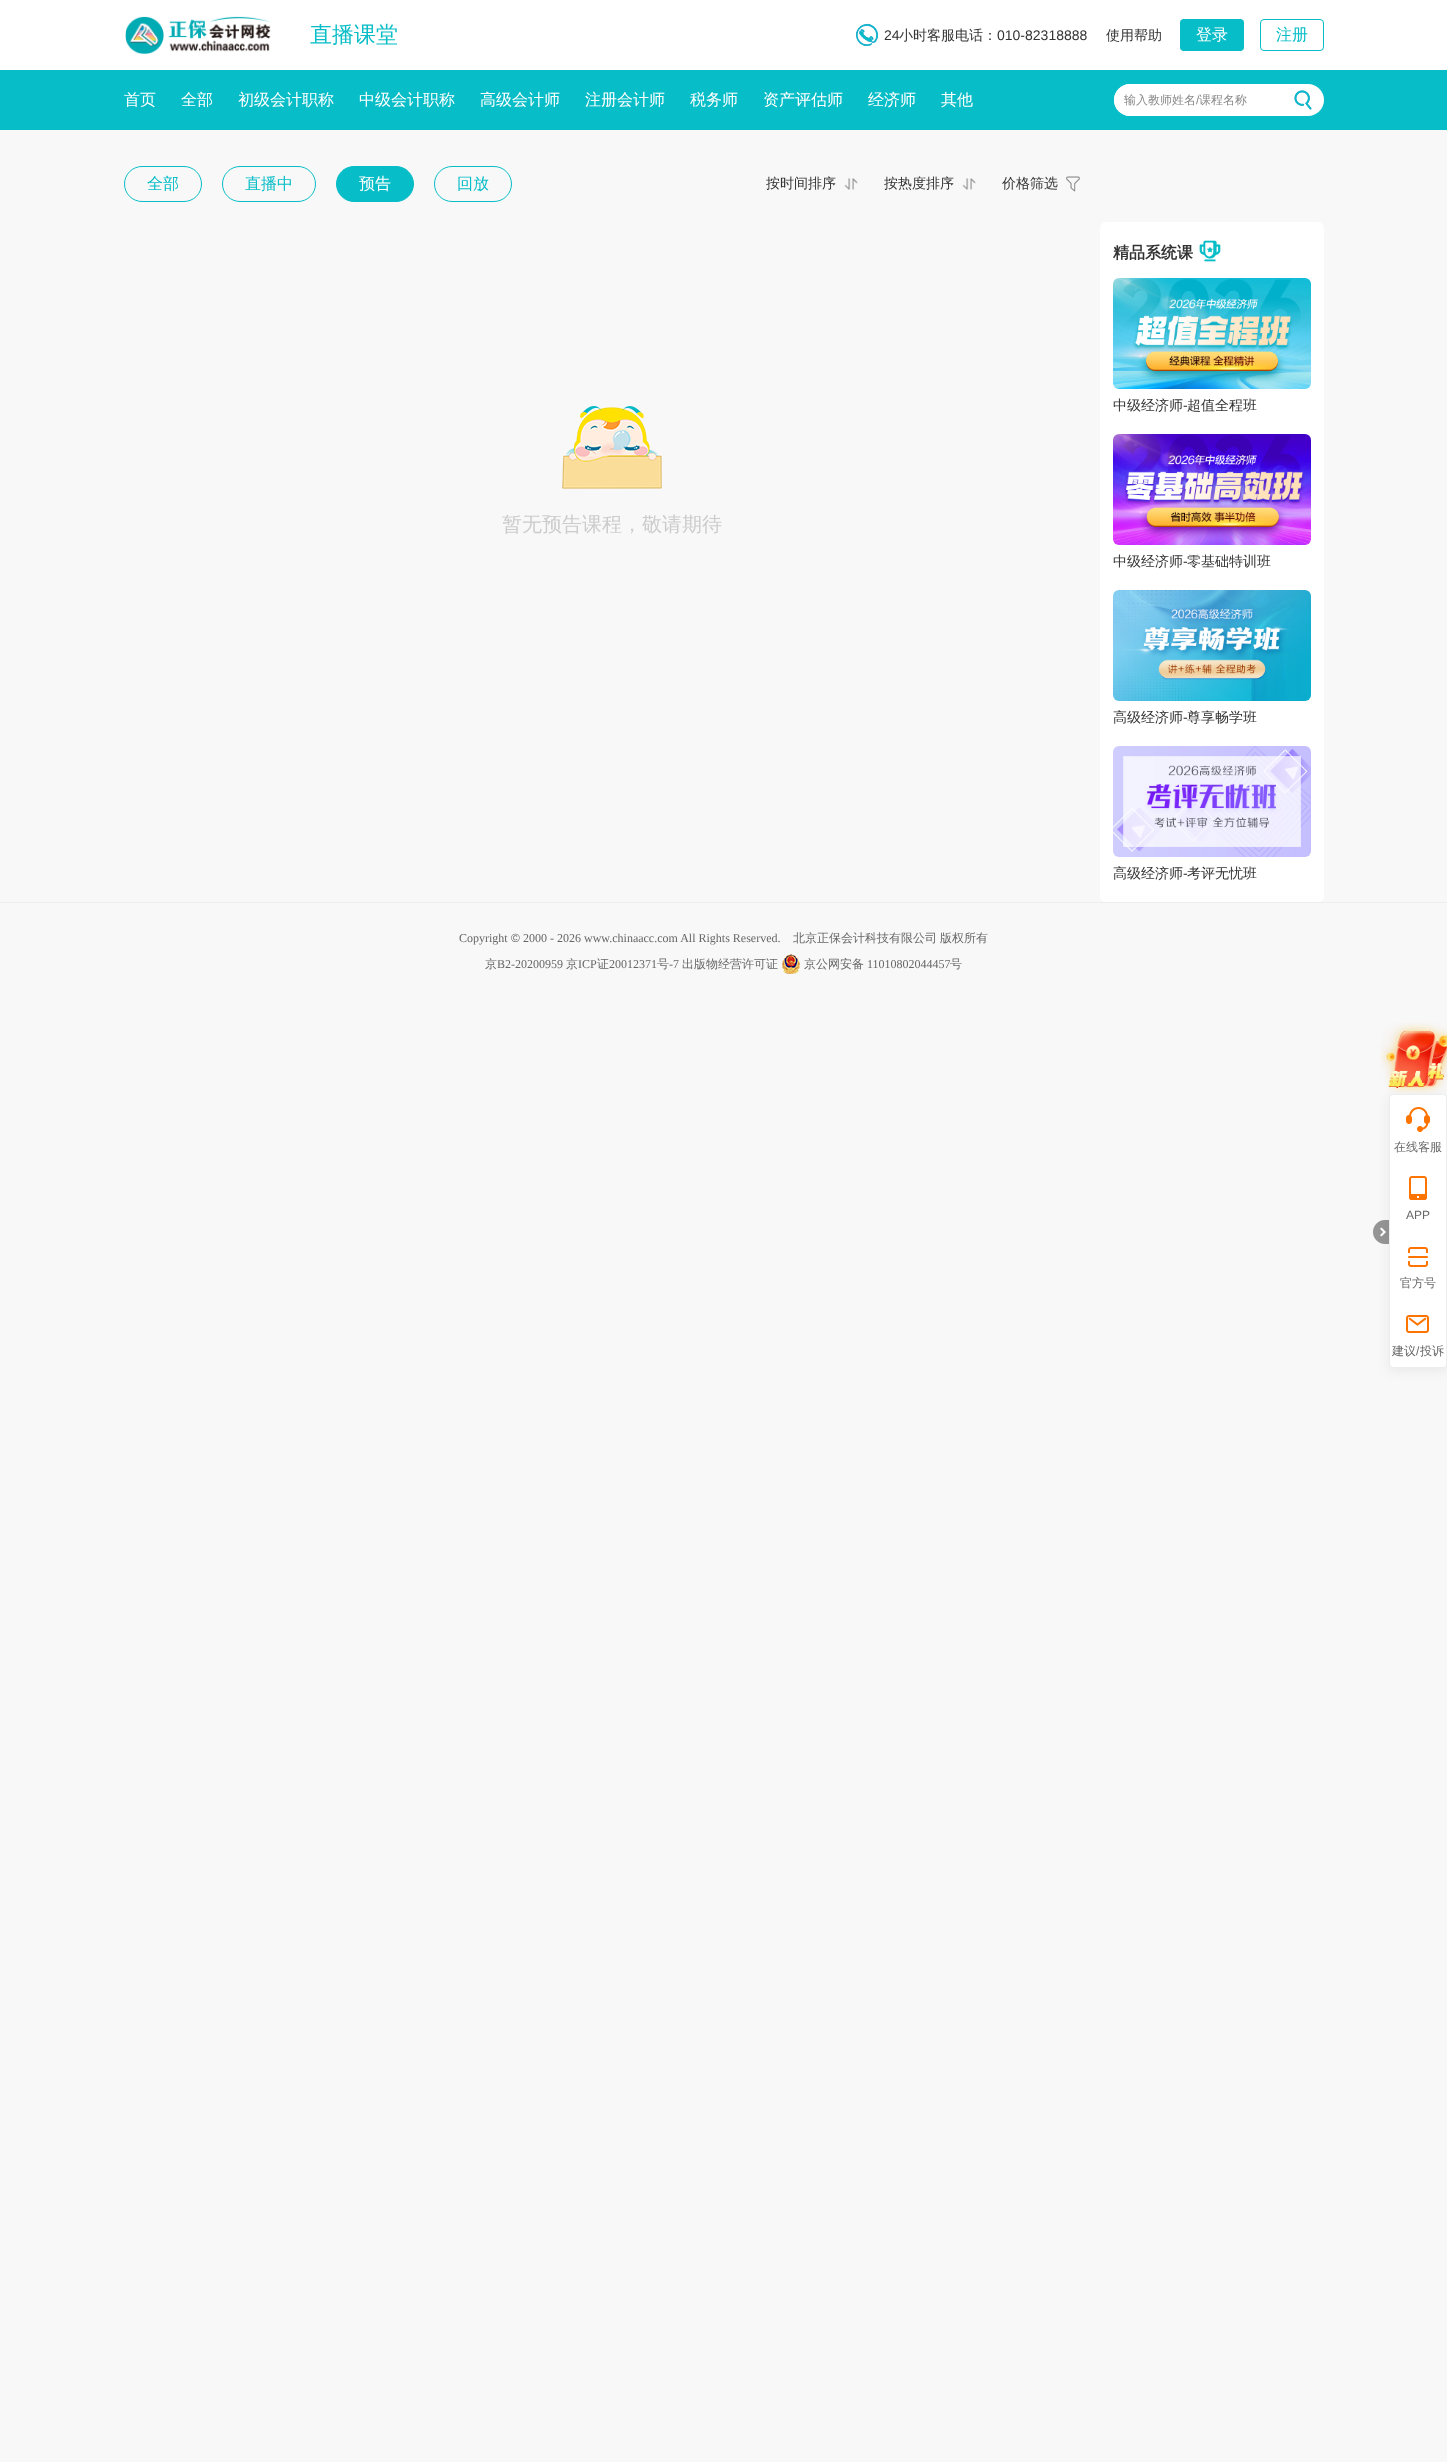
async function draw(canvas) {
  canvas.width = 1447
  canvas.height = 2462
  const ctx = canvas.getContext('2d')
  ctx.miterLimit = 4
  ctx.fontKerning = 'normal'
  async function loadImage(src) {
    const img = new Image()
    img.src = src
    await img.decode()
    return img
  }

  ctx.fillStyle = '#f8f8f8'
  ctx.fillRect(0, 0, 1447, 2462)
  ctx.fillStyle = '#fff'
  ctx.fillRect(0, 0, 1447, 70)
  ctx.drawImage(await loadImage('image0.png'), 125, 16, 146, 39)
  ctx.font = '500 22px WenQuanYi Zen Hei'
  ctx.fillStyle = '#07bdc7'
  ctx.fillText('直播课堂', 310, 42)
  ctx.drawImage(await loadImage('image1.png'), 856, 23, 23, 24)
  ctx.font = '14px Liberation Sans'
  ctx.fillStyle = '#333'
  ctx.fillText('24', 884, 40)
  ctx.font = '500 14px WenQuanYi Zen Hei'
  ctx.fillText('小时客服电话：', 899, 40)
  ctx.font = '14px Liberation Sans'
  ctx.fillText('010-82318888', 997, 40)
  ctx.font = '500 14px WenQuanYi Zen Hei'
  ctx.fillText('使用帮助', 1106, 40)
  ctx.fillStyle = '#07bdc7'
  ctx.beginPath()
  ctx.roundRect(1180, 19, 64, 32, 4)
  ctx.fill()
  ctx.font = '500 16px WenQuanYi Zen Hei'
  ctx.fillStyle = '#fff'
  ctx.fillText('登录', 1196, 40)
  ctx.beginPath()
  ctx.roundRect(1260.5, 19.5, 63, 31, 3.5)
  ctx.strokeStyle = '#07bdc7'
  ctx.stroke()
  ctx.fillStyle = '#07bdc7'
  ctx.fillText('注册', 1276, 40)
  ctx.fillRect(0, 70, 1447, 60)
  ctx.fillStyle = '#fff'
  ctx.fillText('首页', 124, 105)
  ctx.fillText('全部', 181, 105)
  ctx.fillText('初级会计职称', 238, 105)
  ctx.fillText('中级会计职称', 359, 105)
  ctx.fillText('高级会计师', 480, 105)
  ctx.fillText('注册会计师', 585, 105)
  ctx.fillText('税务师', 690, 105)
  ctx.fillText('资产评估师', 763, 105)
  ctx.fillText('经济师', 868, 105)
  ctx.fillText('其他', 941, 105)
  ctx.beginPath()
  ctx.roundRect(1114, 84, 210, 32, 16)
  ctx.fill()
  ctx.beginPath()
  ctx.roundRect(1114, 84, 178, 32, [16, 0, 0, 16])
  ctx.fill()
  ctx.font = '500 12px WenQuanYi Zen Hei'
  ctx.fillStyle = '#888'
  ctx.fillText('输入教师姓名', 1124, 104)
  ctx.font = '12px Liberation Sans'
  ctx.fillText('/', 1196, 104)
  ctx.font = '500 12px WenQuanYi Zen Hei'
  ctx.fillText('课程名称', 1199, 104)
  ctx.drawImage(await loadImage('image2.png'), 1294, 90, 18, 20)
  ctx.beginPath()
  ctx.roundRect(124.5, 166.5, 77, 35, 17.5)
  ctx.stroke()
  ctx.font = '500 16px WenQuanYi Zen Hei'
  ctx.fillStyle = '#07bdc7'
  ctx.fillText('全部', 147, 189)
  ctx.beginPath()
  ctx.roundRect(222.5, 166.5, 93, 35, 17.5)
  ctx.stroke()
  ctx.fillText('直播中', 245, 189)
  ctx.beginPath()
  ctx.roundRect(336.5, 166.5, 77, 35, 17.5)
  ctx.fill()
  ctx.stroke()
  ctx.fillStyle = '#fff'
  ctx.fillText('预告', 359, 189)
  ctx.beginPath()
  ctx.roundRect(434.5, 166.5, 77, 35, 17.5)
  ctx.stroke()
  ctx.fillStyle = '#07bdc7'
  ctx.fillText('回放', 457, 189)
  ctx.drawImage(await loadImage('image3.png'), 844, 178, 14, 12)
  ctx.font = '500 14px WenQuanYi Zen Hei'
  ctx.fillStyle = '#333'
  ctx.fillText('按时间排序', 766, 188)
  ctx.drawImage(await loadImage('image3.png'), 962, 178, 14, 12)
  ctx.fillText('按热度排序', 884, 188)
  ctx.drawImage(await loadImage('image4.png'), 1066, 176, 14, 16)
  ctx.fillText('价格筛选', 1002, 188)
  ctx.drawImage(await loadImage('image5.png'), 562, 406, 100, 83)
  ctx.font = '500 20px WenQuanYi Zen Hei'
  ctx.fillStyle = '#ccc'
  ctx.fillText('暂无预告课程，敬请期待', 502, 531)
  ctx.fillStyle = '#fff'
  ctx.beginPath()
  ctx.roundRect(1100, 222, 224, 680, 6)
  ctx.fill()
  ctx.font = 'bold 16px WenQuanYi Zen Hei'
  ctx.fillStyle = '#333'
  ctx.fillText('精品系统课', 1113, 258)
  ctx.drawImage(await loadImage('image6.png'), 1199, 240, 22, 22)
  ctx.drawImage(await loadImage('image7.png'), 1113, 278, 198, 111)
  ctx.font = '500 14px WenQuanYi Zen Hei'
  ctx.fillText('中级经济师', 1113, 410)
  ctx.font = '14px Liberation Sans'
  ctx.fillText('-', 1183, 410)
  ctx.font = '500 14px WenQuanYi Zen Hei'
  ctx.fillText('超值全程班', 1187, 410)
  ctx.drawImage(await loadImage('image8.png'), 1113, 434, 198, 111)
  ctx.fillText('中级经济师', 1113, 566)
  ctx.font = '14px Liberation Sans'
  ctx.fillText('-', 1183, 566)
  ctx.font = '500 14px WenQuanYi Zen Hei'
  ctx.fillText('零基础特训班', 1187, 566)
  ctx.drawImage(await loadImage('image9.png'), 1113, 590, 198, 111)
  ctx.fillText('高级经济师', 1113, 722)
  ctx.font = '14px Liberation Sans'
  ctx.fillText('-', 1183, 722)
  ctx.font = '500 14px WenQuanYi Zen Hei'
  ctx.fillText('尊享畅学班', 1187, 722)
  ctx.drawImage(await loadImage('image10.png'), 1113, 746, 198, 111)
  ctx.fillText('高级经济师', 1113, 878)
  ctx.font = '14px Liberation Sans'
  ctx.fillText('-', 1183, 878)
  ctx.font = '500 14px WenQuanYi Zen Hei'
  ctx.fillText('考评无忧班', 1187, 878)
  ctx.fillStyle = '#eee'
  ctx.fillRect(0, 902, 1447, 1)
  ctx.font = '12px Liberation Serif'
  ctx.fillStyle = '#666'
  ctx.fillText('Copyright', 459, 942)
  ctx.font = '12px Liberation Sans'
  ctx.fillText('©', 511, 942)
  ctx.font = '12px Liberation Serif'
  ctx.fillText('2000 - 2026 www.chinaacc.com All Rights Reserved.', 523, 942)
  ctx.font = '500 12px WenQuanYi Zen Hei'
  ctx.fillText('北京正保会计科技有限公司', 793, 942)
  ctx.fillText('版权所有', 940, 942)
  ctx.fillText('京', 485, 968)
  ctx.font = '12px Liberation Serif'
  ctx.fillText('B2-20200959', 497, 968)
  ctx.font = '500 12px WenQuanYi Zen Hei'
  ctx.fillText('京', 566, 968)
  ctx.font = '12px Liberation Serif'
  ctx.fillText('ICP', 578, 968)
  ctx.font = '500 12px WenQuanYi Zen Hei'
  ctx.fillText('证', 597, 968)
  ctx.font = '12px Liberation Serif'
  ctx.fillText('20012371', 609, 968)
  ctx.font = '500 12px WenQuanYi Zen Hei'
  ctx.fillText('号', 657, 968)
  ctx.font = '12px Liberation Serif'
  ctx.fillText('-7', 669, 968)
  ctx.font = '500 12px WenQuanYi Zen Hei'
  ctx.fillText('出版物经营许可证', 682, 968)
  ctx.drawImage(await loadImage('image11.png'), 782, 954, 18, 20)
  ctx.fillText('京公网安备', 804, 968)
  ctx.font = '12px Liberation Serif'
  ctx.fillText('11010802044457', 867, 968)
  ctx.font = '500 12px WenQuanYi Zen Hei'
  ctx.fillText('号', 950, 968)
  ctx.drawImage(await loadImage('image12.png'), 1380, 1022, 67, 72)
  ctx.drawImage(await loadImage('image13.png'), 1388, 1063, 56, 25)
  ctx.fillStyle = '#d9d9d980'
  ctx.filter = 'blur(5.5px)'
  ctx.beginPath()
  ctx.roundRect(1389, 1097, 58, 274, 4)
  ctx.fill()
  ctx.filter = 'none'
  ctx.drawImage(await loadImage('image14.png'), 1373, 1220, 16, 24)
  ctx.fillStyle = '#fff'
  ctx.beginPath()
  ctx.roundRect(1389.5, 1094.5, 57, 273, 3.5)
  ctx.fill()
  ctx.strokeStyle = '#ecedee'
  ctx.stroke()
  ctx.drawImage(await loadImage('image15.png'), 1406, 1107, 24, 25)
  ctx.fillStyle = '#666'
  ctx.fillText('在线客服', 1394, 1151)
  ctx.drawImage(await loadImage('image16.png'), 1409, 1176, 18, 24)
  ctx.font = '12px Liberation Sans'
  ctx.fillText('APP', 1406, 1219)
  ctx.drawImage(await loadImage('image17.png'), 1408, 1247, 20, 20)
  ctx.font = '500 12px WenQuanYi Zen Hei'
  ctx.fillText('官方号', 1400, 1287)
  ctx.drawImage(await loadImage('image18.png'), 1406, 1315, 23, 18)
  ctx.fillText('建议', 1392, 1355)
  ctx.font = '12px Liberation Sans'
  ctx.fillText('/', 1416, 1355)
  ctx.font = '500 12px WenQuanYi Zen Hei'
  ctx.fillText('投诉', 1420, 1355)
}

draw(document.querySelector('canvas'))
